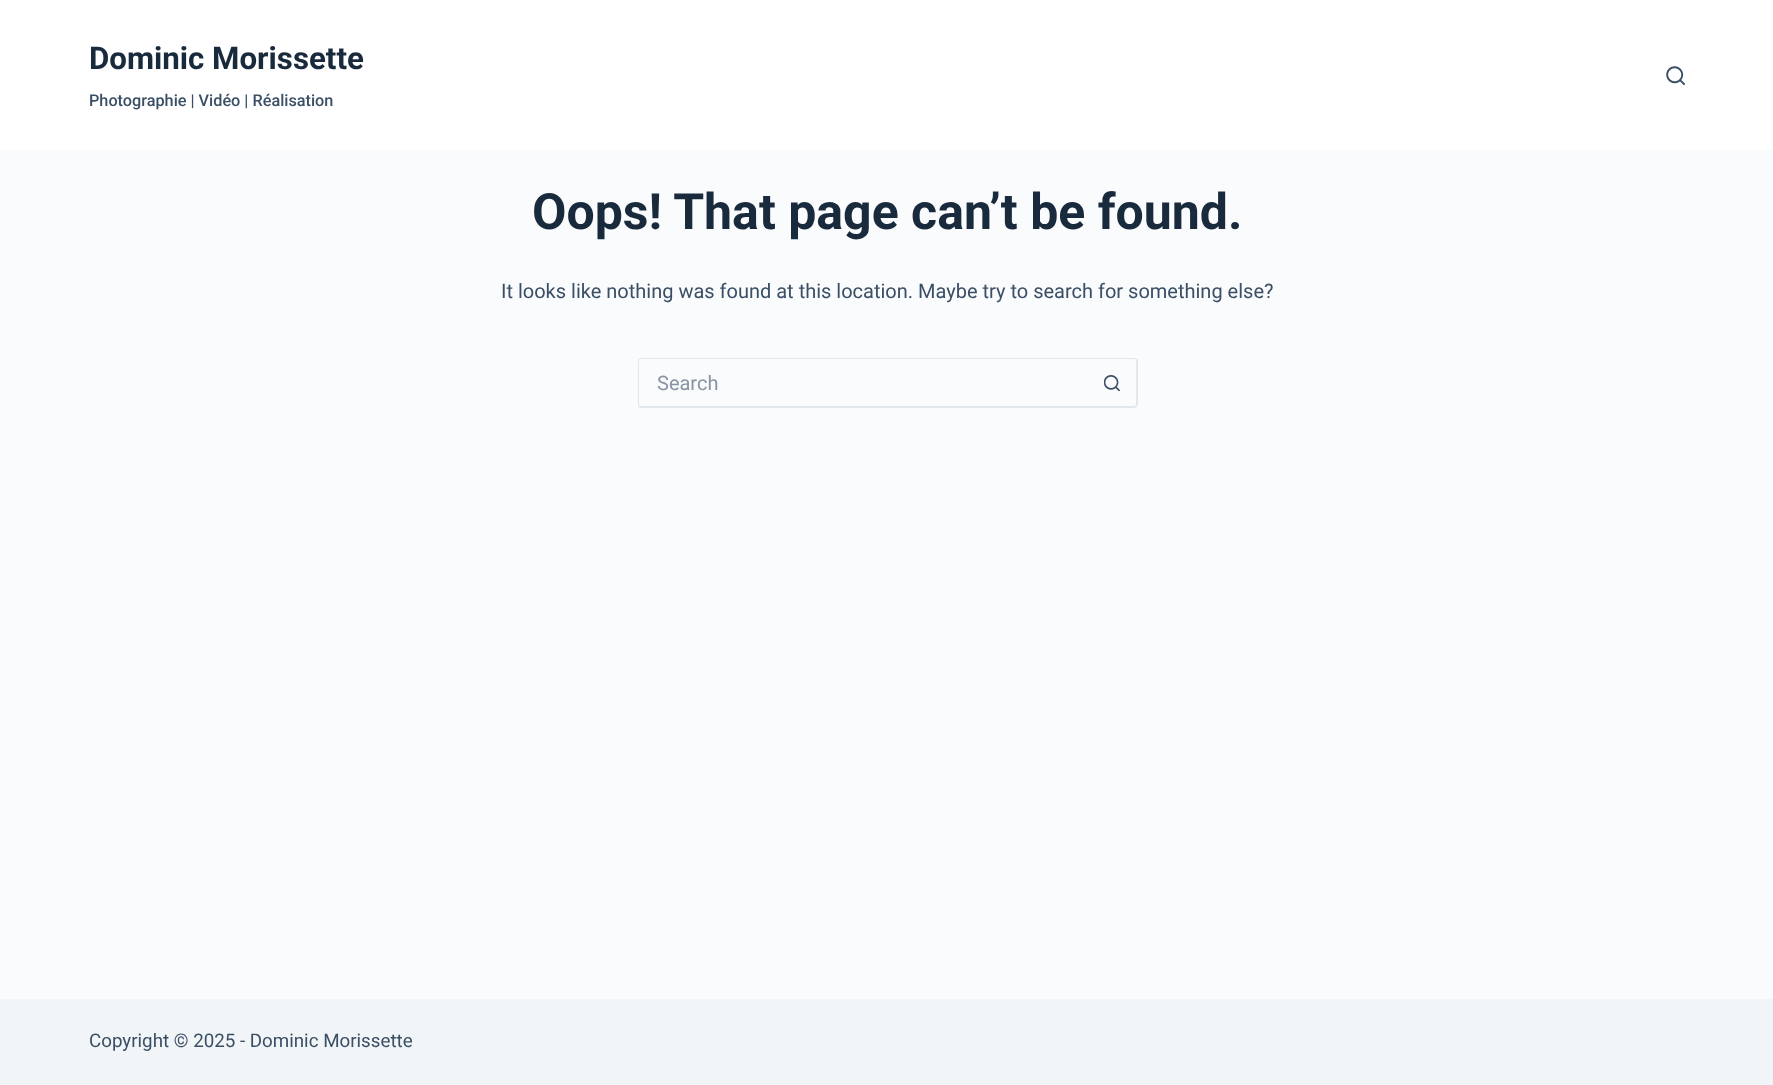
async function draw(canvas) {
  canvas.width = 1773
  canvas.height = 1085
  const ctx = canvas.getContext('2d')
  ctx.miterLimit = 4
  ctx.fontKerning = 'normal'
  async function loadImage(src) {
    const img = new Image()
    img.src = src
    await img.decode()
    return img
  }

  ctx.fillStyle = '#fafbfc'
  ctx.fillRect(0, 0, 1773, 1085)
  ctx.fillStyle = '#fff'
  ctx.fillRect(0, 0, 1773, 150)
  ctx.font = 'bold 31.25px Roboto'
  ctx.fillStyle = '#192a3d'
  ctx.fillText('Dominic Morissette', 89, 69)
  ctx.font = '500 16.25px Roboto'
  ctx.fillStyle = '#3a4f66'
  ctx.fillText('Photographie | Vidéo | Réalisation', 89, 106)
  ctx.drawImage(await loadImage('image0.png'), 1666, 66, 19, 19)
  ctx.font = 'bold 50px Roboto'
  ctx.fillStyle = '#192a3d'
  ctx.fillText('Oops! That page can’t be found.', 532, 229)
  ctx.font = '20px Roboto'
  ctx.fillStyle = '#3a4f66'
  ctx.fillText('It looks like nothing was found at this location. Maybe try to search for something else?', 501, 298)
  ctx.fillStyle = '#e1e8ed'
  ctx.beginPath()
  ctx.moveTo(641, 358)
  ctx.lineTo(1088, 358)
  ctx.lineTo(1088, 408)
  ctx.lineTo(641, 408)
  ctx.bezierCurveTo(639, 408, 638, 406, 638, 404)
  ctx.lineTo(638, 361)
  ctx.bezierCurveTo(638, 359, 639, 358, 641, 358)
  ctx.closePath()
  ctx.moveTo(641, 359)
  ctx.lineTo(1088, 359)
  ctx.lineTo(1088, 406)
  ctx.lineTo(641, 406)
  ctx.bezierCurveTo(640, 406, 639, 405, 639, 404)
  ctx.lineTo(639, 361)
  ctx.bezierCurveTo(639, 360, 640, 359, 641, 359)
  ctx.closePath()
  ctx.fill('evenodd')
  ctx.fillStyle = '#8794a2'
  ctx.fillText('Search', 657, 390)
  ctx.fillStyle = '#e1e8ed'
  ctx.beginPath()
  ctx.moveTo(1088, 358)
  ctx.lineTo(1134, 358)
  ctx.bezierCurveTo(1136, 358, 1138, 359, 1138, 361)
  ctx.lineTo(1138, 404)
  ctx.bezierCurveTo(1138, 406, 1136, 408, 1134, 408)
  ctx.lineTo(1088, 408)
  ctx.closePath()
  ctx.moveTo(1088, 359)
  ctx.lineTo(1134, 359)
  ctx.bezierCurveTo(1135, 359, 1136, 360, 1136, 361)
  ctx.lineTo(1136, 404)
  ctx.bezierCurveTo(1136, 405, 1135, 406, 1134, 406)
  ctx.lineTo(1088, 406)
  ctx.closePath()
  ctx.fill('evenodd')
  ctx.drawImage(await loadImage('image1.png'), 1104, 375, 16, 16)
  ctx.fillStyle = '#f2f5f7'
  ctx.fillRect(0, 999, 1773, 86)
  ctx.font = '18.75px Roboto'
  ctx.fillStyle = '#3a4f66'
  ctx.fillText('Copyright © 2025 - Dominic Morissette', 89, 1047)
}

draw(document.querySelector('canvas'))
